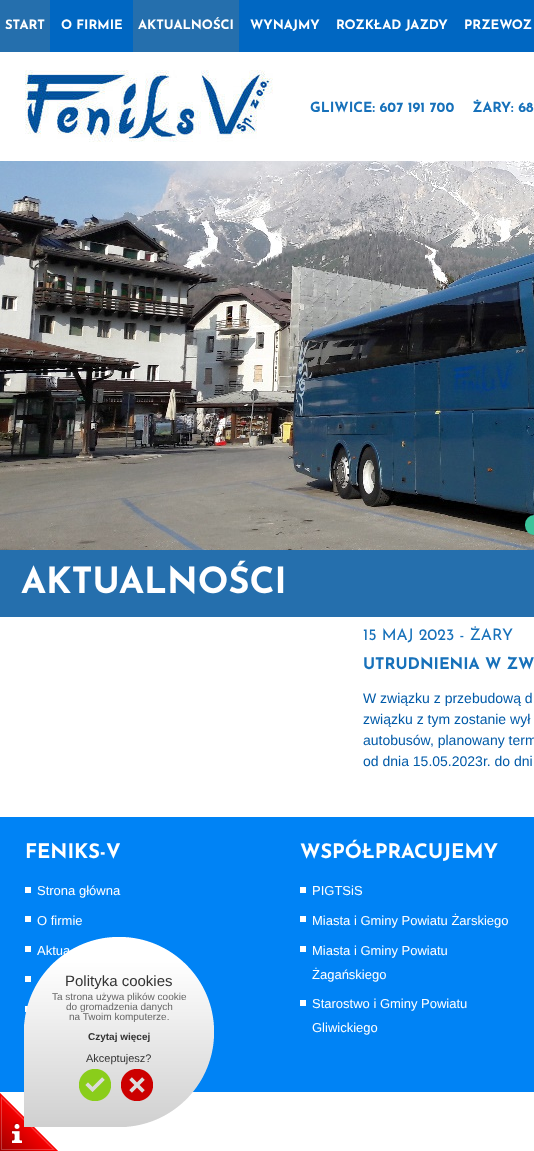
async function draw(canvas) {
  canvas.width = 534
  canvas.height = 1151
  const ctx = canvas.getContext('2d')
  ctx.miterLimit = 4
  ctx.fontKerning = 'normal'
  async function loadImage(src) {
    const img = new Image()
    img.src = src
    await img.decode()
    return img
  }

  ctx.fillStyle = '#fff'
  ctx.fillRect(0, 0, 534, 1151)
  ctx.fillStyle = '#0067c2'
  ctx.fillRect(50, 0, 484, 52)
  ctx.fillStyle = '#256fad'
  ctx.fillRect(0, 0, 50, 52)
  ctx.font = 'bold 13px Josefin Sans'
  ctx.fillStyle = '#fff'
  ctx.fillText('START', 5, 29)
  ctx.fillText('O FIRMIE', 61, 29)
  ctx.fillStyle = '#256fad'
  ctx.fillRect(133, 0, 106, 52)
  ctx.fillStyle = '#fff'
  ctx.fillText('AKTUALNOŚCI', 138, 29)
  ctx.fillText('WYNAJMY', 250, 29)
  ctx.fillText('ROZKŁAD JAZDY', 336, 29)
  ctx.fillText('PRZEWOZ', 464, 29)
  ctx.drawImage(await loadImage('image0.png'), 0, 70, 534, 480)
  ctx.font = 'bold 14px Josefin Sans'
  ctx.fillStyle = '#1771ba'
  ctx.fillText('GLIWICE: 607 191 700    ŻARY: 68', 310, 112)
  ctx.fillStyle = '#3cc39b'
  ctx.beginPath()
  ctx.roundRect(525, 515, 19, 20, 10)
  ctx.fill()
  ctx.fillStyle = '#256fad'
  ctx.fillRect(0, 550, 534, 67)
  ctx.font = 'bold 36px Josefin Sans'
  ctx.fillStyle = '#fff'
  ctx.fillText('AKTUALNOŚCI', 21, 593)
  ctx.font = '16px Josefin Sans'
  ctx.fillStyle = '#1771ba'
  ctx.fillText('15 MAJ 2023 - ŻARY', 363, 640)
  ctx.font = 'bold 16px Josefin Sans'
  ctx.fillText('UTRUDNIENIA W ZW', 363, 669)
  ctx.font = '14px Liberation Sans'
  ctx.fillStyle = '#005aa8'
  ctx.fillText('W związku z przebudową d', 363, 703)
  ctx.fillText('związku z tym zostanie wył', 363, 724)
  ctx.fillText('autobusów, planowany term', 363, 745)
  ctx.fillText('od dnia 15.05.2023r. do dni', 363, 766)
  ctx.fillStyle = '#0083f5'
  ctx.fillRect(0, 817, 534, 275)
  ctx.font = 'bold 20px Josefin Sans'
  ctx.fillStyle = '#fff'
  ctx.fillText('FENIKS-V', 25, 858)
  ctx.fillRect(25, 887, 6, 6)
  ctx.font = '13px Liberation Sans'
  ctx.fillText('Strona główna', 37, 895)
  ctx.fillRect(25, 916, 6, 6)
  ctx.fillText('O firmie', 37, 925)
  ctx.fillRect(25, 946, 6, 6)
  ctx.fillText('Aktua', 37, 955)
  ctx.fillRect(25, 976, 6, 6)
  ctx.fillRect(25, 1006, 6, 6)
  ctx.font = 'bold 20px Josefin Sans'
  ctx.fillText('WSPÓŁPRACUJEMY', 300, 858)
  ctx.fillRect(300, 887, 6, 6)
  ctx.font = '13px Liberation Sans'
  ctx.fillText('PIGTSiS', 312, 895)
  ctx.fillRect(300, 916, 6, 6)
  ctx.fillText('Miasta i Gminy Powiatu Żarskiego', 312, 925)
  ctx.fillRect(300, 946, 6, 6)
  ctx.fillText('Miasta i Gminy Powiatu', 312, 955)
  ctx.fillText('Żagańskiego', 312, 979)
  ctx.fillRect(300, 1000, 6, 6)
  ctx.fillText('Starostwo i Gminy Powiatu', 312, 1008)
  ctx.fillText('Gliwickiego', 312, 1032)
  ctx.drawImage(await loadImage('image4.png'), 0, 1093, 58, 58)
  ctx.drawImage(await loadImage('image1.png'), 24, 937, 190, 190)
  ctx.font = '15px Liberation Sans'
  ctx.fillStyle = '#333'
  ctx.fillText('Polityka cookies', 65, 986)
  ctx.font = '10px Liberation Sans'
  ctx.fillStyle = '#666'
  ctx.fillText('Ta strona używa plików cookie', 52, 1000)
  ctx.fillText('do gromadzenia danych', 66, 1010)
  ctx.fillText('na Twoim komputerze.', 69, 1020)
  ctx.font = 'bold 10px Liberation Sans'
  ctx.fillStyle = '#333'
  ctx.fillText('Czytaj więcej', 88, 1040)
  ctx.font = '11px Liberation Sans'
  ctx.fillText('Akceptujesz?', 86, 1062)
  ctx.drawImage(await loadImage('image2.png'), 79, 1069, 32, 32)
  ctx.drawImage(await loadImage('image3.png'), 121, 1069, 32, 32)
}

draw(document.querySelector('canvas'))
